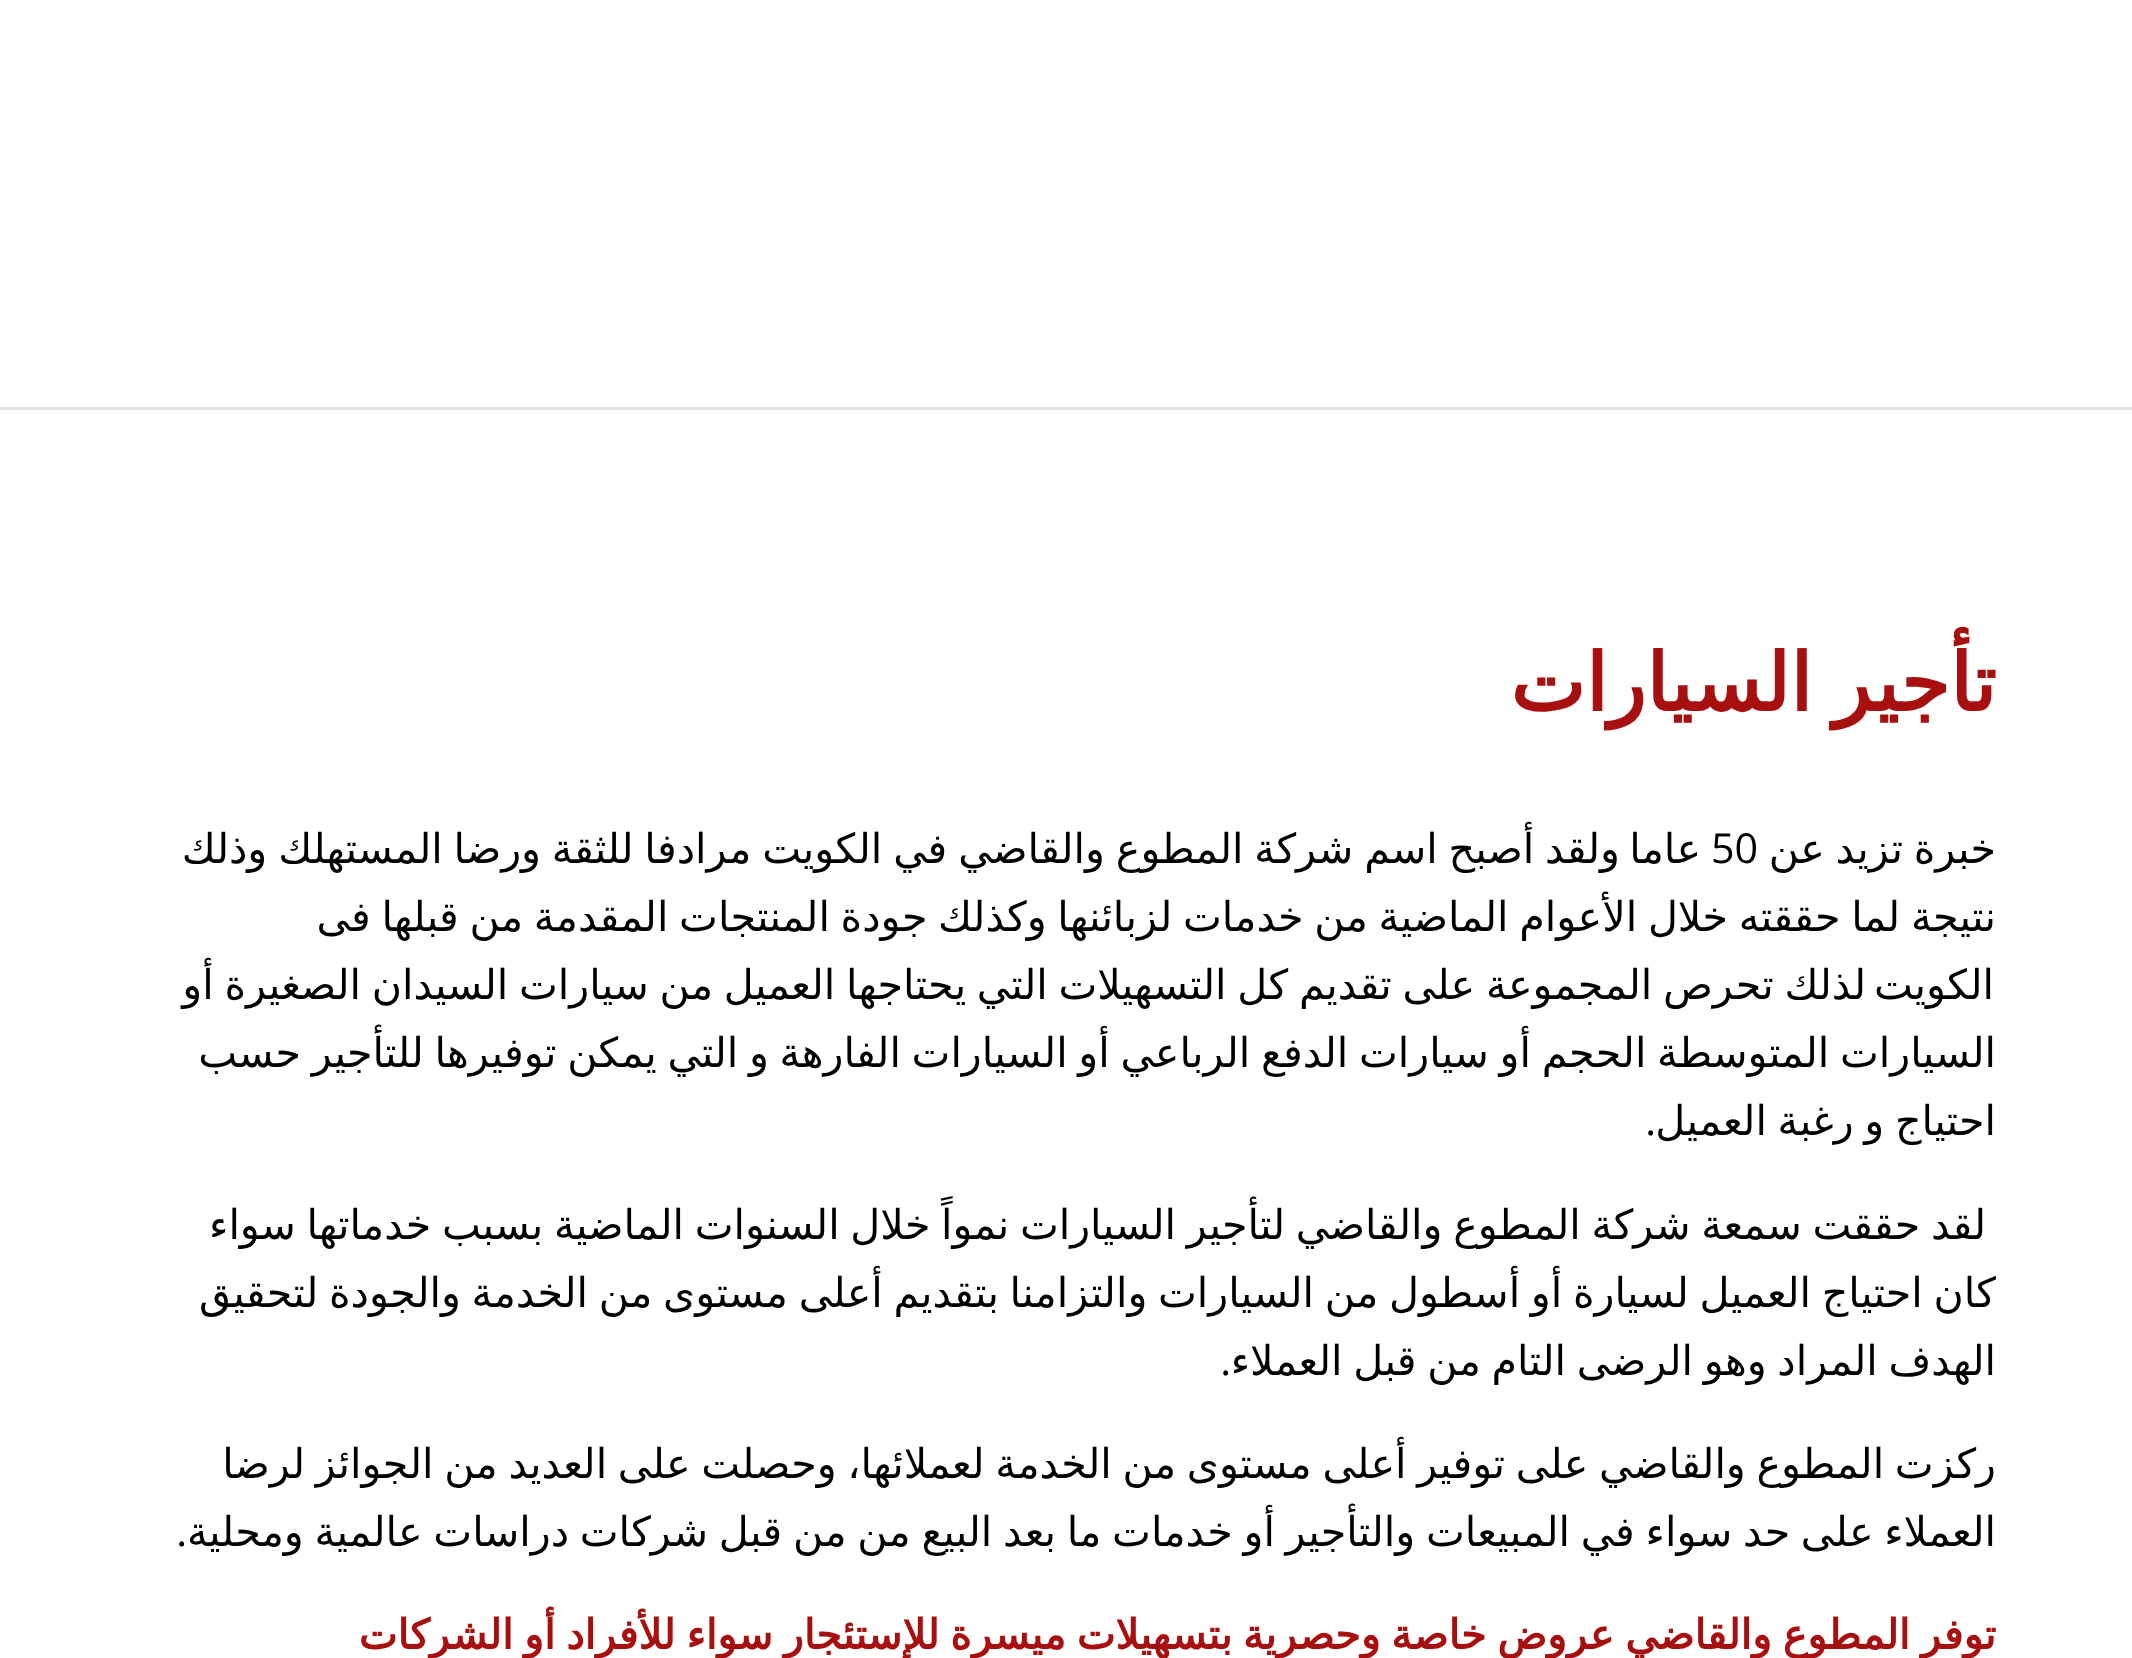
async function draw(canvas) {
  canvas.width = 2132
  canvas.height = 1658
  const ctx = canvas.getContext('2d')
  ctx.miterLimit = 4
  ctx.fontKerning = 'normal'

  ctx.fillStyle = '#fff'
  ctx.fillRect(0, 0, 2132, 1658)
  ctx.fillStyle = '#e1e1e1'
  ctx.fillRect(0, 407, 2132, 3)
  ctx.wordSpacing = '-5px'
  ctx.direction = 'rtl'
  ctx.font = 'bold 79.75px DejaVu Sans'
  ctx.fillStyle = '#a81010'
  ctx.fillText('تأجير السيارات', 1996, 711)
  ctx.wordSpacing = '-2.4px'
  ctx.font = '41.25px DejaVu Sans'
  ctx.fillStyle = '#000'
  ctx.fillText('خبرة تزيد عن', 1996, 863)
  ctx.wordSpacing = '0px'
  ctx.direction = 'ltr'
  ctx.font = '41.25px Open Sans'
  ctx.fillText('50', 1711, 863)
  ctx.wordSpacing = '-2.25px'
  ctx.direction = 'rtl'
  ctx.font = '41.25px DejaVu Sans'
  ctx.fillText('ولقد أصبح اسم شركة المطوع والقاضي في الكويت مرادفا للثقة ورضا المستهلك وذلك', 1620, 863)
  ctx.wordSpacing = '0px'
  ctx.fillText('عاما', 1701, 863)
  ctx.wordSpacing = '-2.4px'
  ctx.fillText('نتيجة لما حققته خلال الأعوام الماضية من خدمات لزبائنها وكذلك جودة المنتجات المقدمة من قبلها فى', 1996, 931)
  ctx.fillText('لذلك تحرص المجموعة على تقديم كل التسهيلات التي يحتاجها العميل من سيارات السيدان الصغيرة أو', 1866, 999)
  ctx.wordSpacing = '0px'
  ctx.fillText('الكويت', 1994, 999)
  ctx.wordSpacing = '-2.4px'
  ctx.fillText('السيارات المتوسطة الحجم أو سيارات الدفع الرباعي أو السيارات الفارهة و التي يمكن توفيرها للتأجير حسب', 1996, 1067)
  ctx.fillText('احتياج و رغبة العميل', 1996, 1135)
  ctx.wordSpacing = '0px'
  ctx.font = '41.25px Open Sans'
  ctx.fillText('.', 1656, 1135)
  ctx.wordSpacing = '-2.4px'
  ctx.font = '41.25px DejaVu Sans'
  ctx.fillText('لقد حققت سمعة شركة المطوع والقاضي لتأجير السيارات نمواً خلال السنوات الماضية بسبب خدماتها سواء', 1986, 1239)
  ctx.fillText('كان احتياج العميل لسيارة أو أسطول من السيارات والتزامنا بتقديم أعلى مستوى من الخدمة والجودة لتحقيق', 1996, 1307)
  ctx.fillText('الهدف المراد وهو الرضى التام من قبل العملاء', 1996, 1375)
  ctx.wordSpacing = '0px'
  ctx.font = '41.25px Open Sans'
  ctx.fillText('.', 1231, 1375)
  ctx.wordSpacing = '-2.4px'
  ctx.font = '41.25px DejaVu Sans'
  ctx.fillText('ركزت المطوع والقاضي على توفير أعلى مستوى من الخدمة لعملائها، وحصلت على العديد من الجوائز لرضا', 1996, 1478)
  ctx.fillText('العملاء على حد سواء في المبيعات والتأجير أو خدمات ما بعد البيع من من قبل شركات دراسات عالمية ومحلية', 1996, 1546)
  ctx.wordSpacing = '0px'
  ctx.font = '41.25px Open Sans'
  ctx.fillText('.', 187, 1546)
  ctx.wordSpacing = '-2.4px'
  ctx.font = 'bold 41.25px DejaVu Sans'
  ctx.fillStyle = '#a81010'
  ctx.fillText('توفر المطوع والقاضي عروض خاصة وحصرية بتسهيلات ميسرة للإستئجار سواء للأفراد أو الشركات', 1996, 1649)
}

draw(document.querySelector('canvas'))
